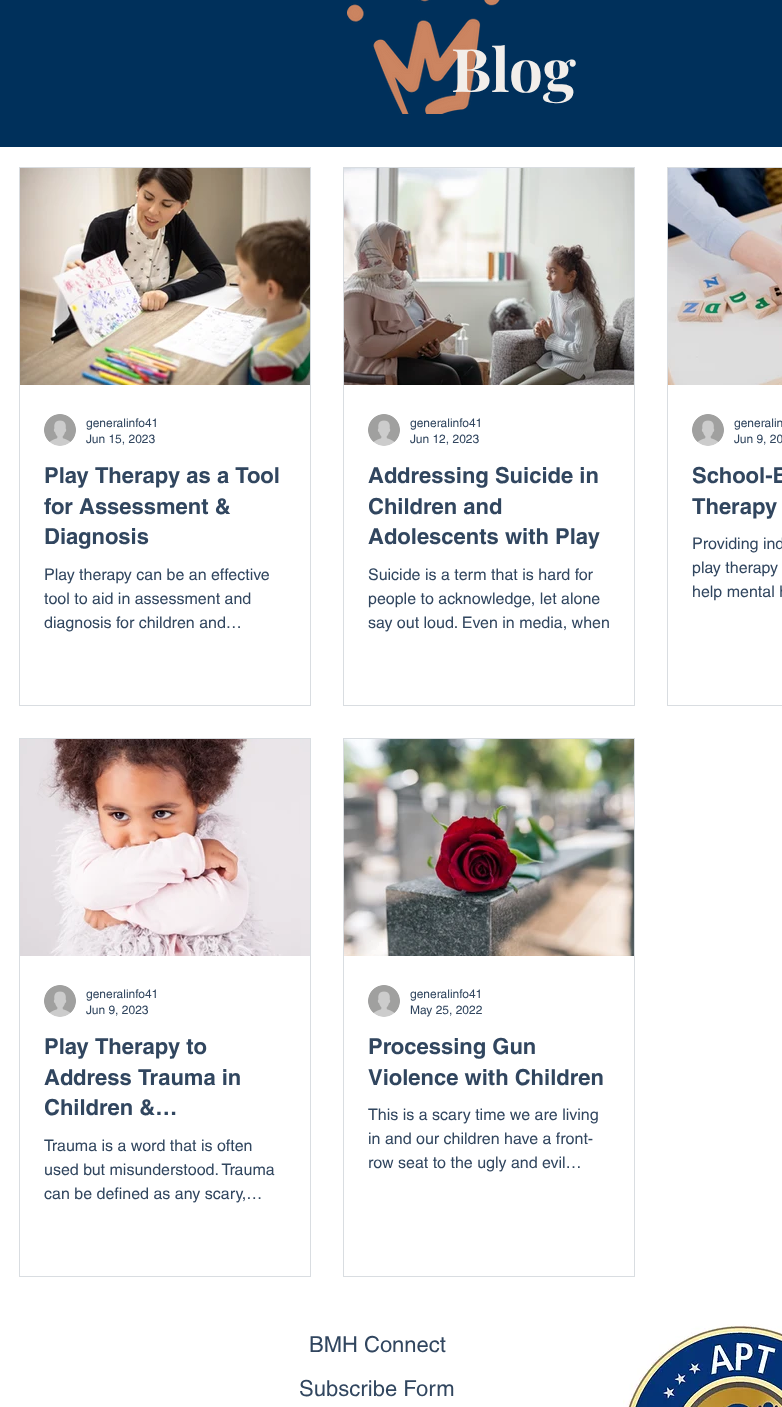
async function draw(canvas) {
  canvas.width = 782
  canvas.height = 1407
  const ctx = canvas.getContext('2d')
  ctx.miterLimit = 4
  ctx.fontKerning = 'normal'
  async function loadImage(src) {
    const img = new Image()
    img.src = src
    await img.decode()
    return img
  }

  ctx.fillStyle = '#fff'
  ctx.fillRect(0, 0, 782, 1407)
  ctx.fillStyle = '#00305b'
  ctx.fillRect(0, 0, 782, 147)
  ctx.drawImage(await loadImage('image0.png'), 347, 0, 153, 114)
  ctx.font = 'bold 60px Playfair Display'
  ctx.fillStyle = '#f2eeea'
  ctx.fillText('Blog', 451, 92)
  ctx.strokeStyle = '#d9dde1'
  ctx.strokeRect(19.5, 167.5, 291, 538)
  ctx.drawImage(await loadImage('image1.png'), 20, 168, 290, 217)
  ctx.drawImage(await loadImage('image2.png'), 44, 414, 32, 32)
  ctx.font = '12px helvetica'
  ctx.fillStyle = '#31465f'
  ctx.fillText('generalinfo41', 86, 427)
  ctx.fillText('Jun 15, 2023', 86, 443)
  ctx.font = 'bold 22px helvetica'
  ctx.fillText('Play Therapy as a Tool', 44, 483)
  ctx.fillText('for Assessment &', 44, 514)
  ctx.fillText('Diagnosis', 44, 544)
  ctx.font = '16px helvetica'
  ctx.fillText('Play therapy can be an effective', 44, 580)
  ctx.fillText('tool to aid in assessment and', 44, 604)
  ctx.fillText('diagnosis for children and…', 44, 628)
  ctx.strokeRect(343.5, 167.5, 291, 538)
  ctx.drawImage(await loadImage('image3.png'), 344, 168, 290, 217)
  ctx.drawImage(await loadImage('image2.png'), 368, 414, 32, 32)
  ctx.font = '12px helvetica'
  ctx.fillText('generalinfo41', 410, 427)
  ctx.fillText('Jun 12, 2023', 410, 443)
  ctx.font = 'bold 22px helvetica'
  ctx.fillText('Addressing Suicide in', 368, 483)
  ctx.fillText('Children and', 368, 514)
  ctx.fillText('Adolescents with Play', 368, 544)
  ctx.font = '16px helvetica'
  ctx.fillText('Suicide is a term that is hard for', 368, 580)
  ctx.fillText('people to acknowledge, let alone', 368, 604)
  ctx.fillText('say out loud. Even in media, when', 368, 628)
  ctx.strokeRect(667.5, 167.5, 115, 538)
  ctx.drawImage(await loadImage('image4.png'), 668, 168, 114, 217)
  ctx.drawImage(await loadImage('image2.png'), 692, 414, 32, 32)
  ctx.font = '12px helvetica'
  ctx.fillText('generalin', 734, 427)
  ctx.fillText('Jun 9, 20', 734, 443)
  ctx.font = 'bold 22px helvetica'
  ctx.fillText('School-B', 692, 483)
  ctx.fillText('Therapy', 692, 514)
  ctx.font = '16px helvetica'
  ctx.fillText('Providing ind', 692, 549)
  ctx.fillText('play therapy', 692, 573)
  ctx.fillText('help mental h', 692, 597)
  ctx.strokeRect(19.5, 738.5, 291, 538)
  ctx.drawImage(await loadImage('image5.png'), 20, 739, 280, 217)
  ctx.drawImage(await loadImage('image6.png'), 300, 739, 10, 217)
  ctx.drawImage(await loadImage('image2.png'), 44, 985, 32, 32)
  ctx.font = '12px helvetica'
  ctx.fillText('generalinfo41', 86, 998)
  ctx.fillText('Jun 9, 2023', 86, 1014)
  ctx.font = 'bold 22px helvetica'
  ctx.fillText('Play Therapy to', 44, 1054)
  ctx.fillText('Address Trauma in', 44, 1085)
  ctx.fillText('Children &…', 44, 1115)
  ctx.font = '16px helvetica'
  ctx.fillText('Trauma is a word that is often', 44, 1151)
  ctx.fillText('used but misunderstood. Trauma', 44, 1175)
  ctx.fillText('can be defined as any scary,…', 44, 1199)
  ctx.strokeRect(343.5, 738.5, 291, 538)
  ctx.drawImage(await loadImage('image7.png'), 344, 739, 290, 217)
  ctx.drawImage(await loadImage('image2.png'), 368, 985, 32, 32)
  ctx.font = '12px helvetica'
  ctx.fillText('generalinfo41', 410, 998)
  ctx.fillText('May 25, 2022', 410, 1014)
  ctx.font = 'bold 22px helvetica'
  ctx.fillText('Processing Gun', 368, 1054)
  ctx.fillText('Violence with Children', 368, 1085)
  ctx.font = '16px helvetica'
  ctx.fillText('This is a scary time we are living', 368, 1120)
  ctx.fillText('in and our children have a front-', 368, 1144)
  ctx.fillText('row seat to the ugly and evil…', 368, 1168)
  ctx.font = '22px helvetica'
  ctx.fillText('BMH Connect', 309, 1352)
  ctx.drawImage(await loadImage('image8.png'), 623, 1324, 159, 83)
  ctx.fillText('Subscribe Form', 299, 1396)
}

draw(document.querySelector('canvas'))
